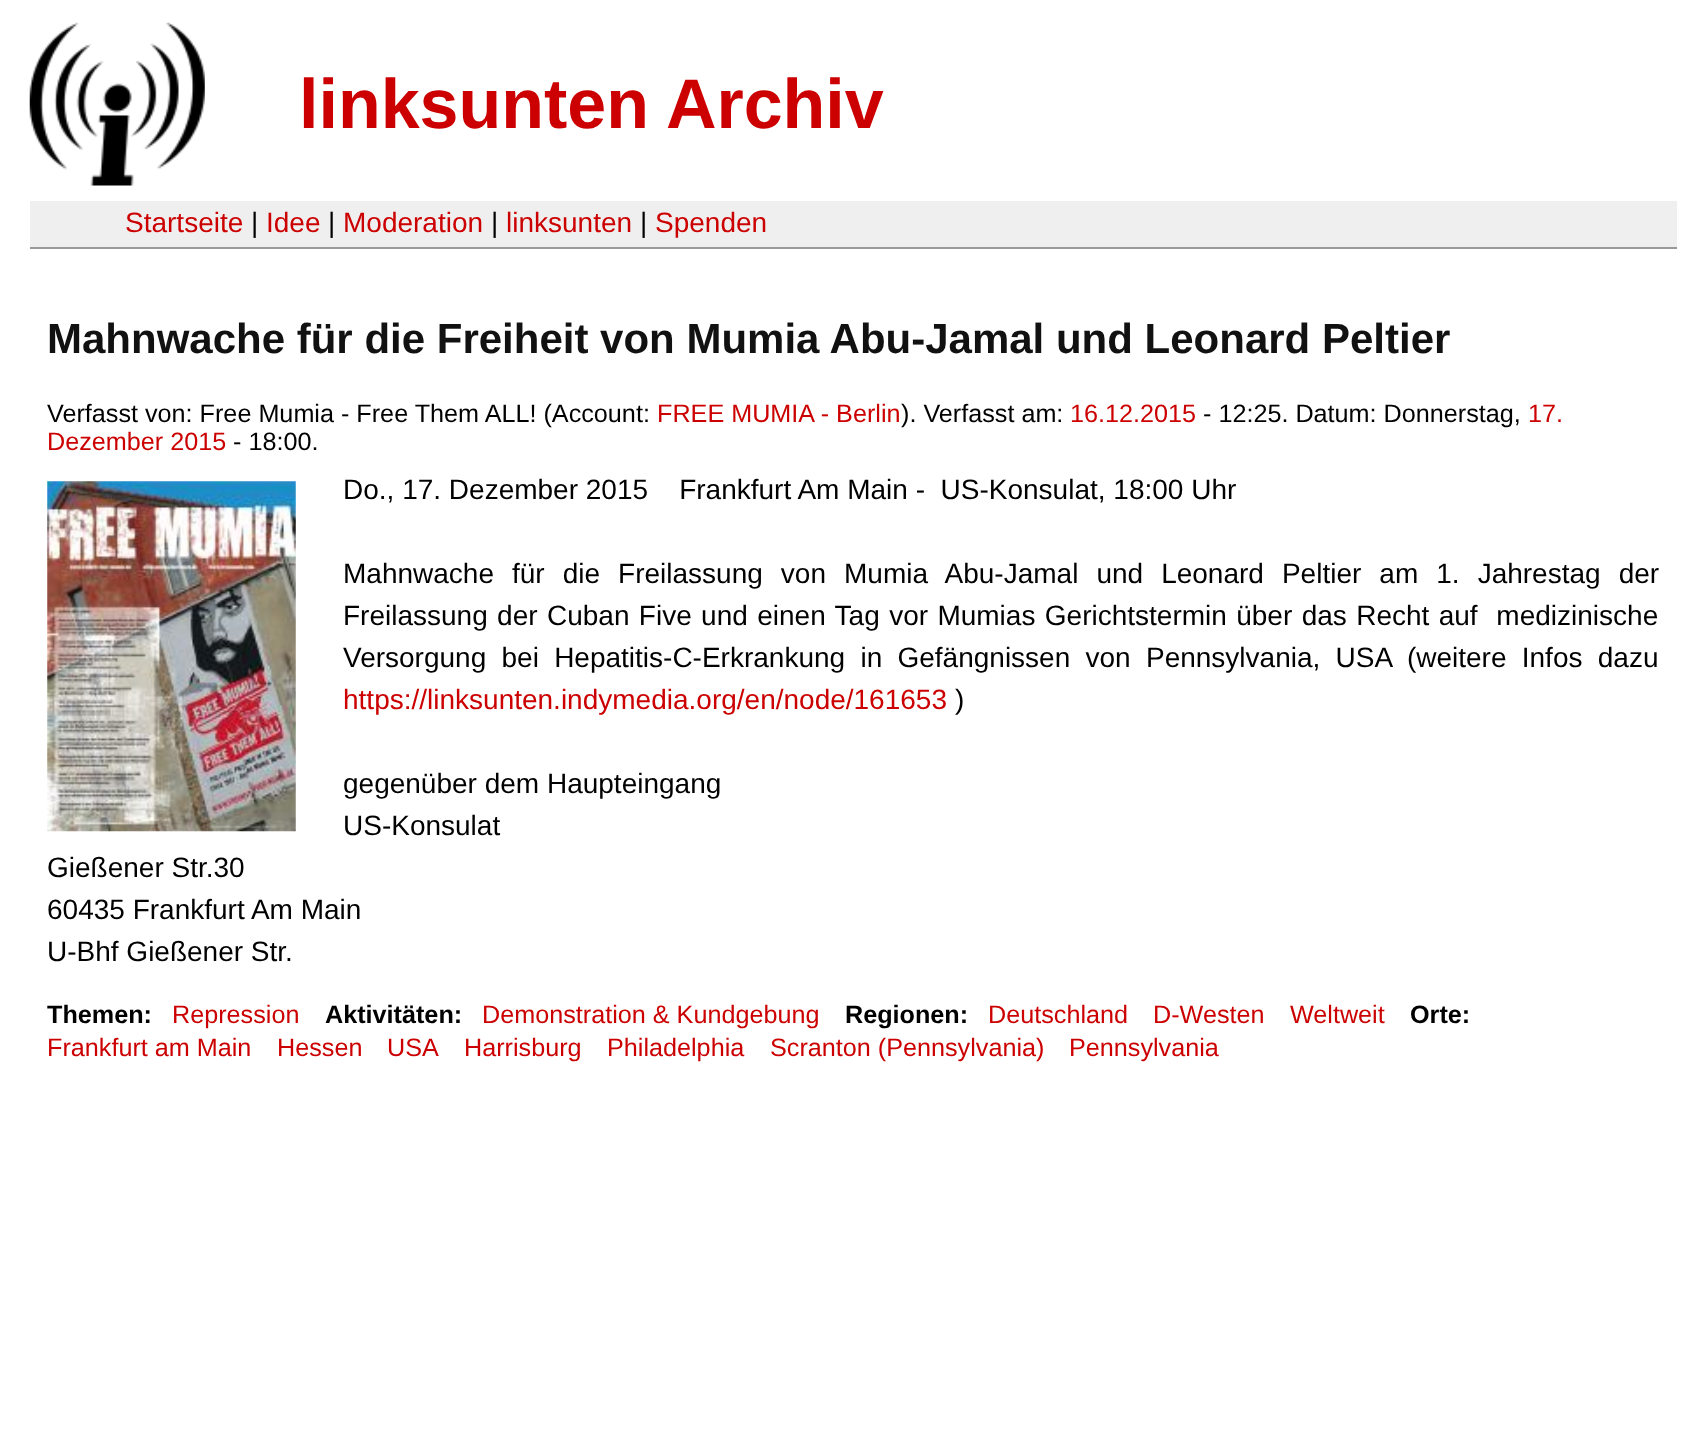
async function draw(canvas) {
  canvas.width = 1706
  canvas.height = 1436
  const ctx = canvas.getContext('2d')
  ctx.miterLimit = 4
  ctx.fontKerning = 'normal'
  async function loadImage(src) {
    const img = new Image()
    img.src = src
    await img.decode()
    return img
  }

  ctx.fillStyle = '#fff'
  ctx.fillRect(0, 0, 1706, 1436)
  ctx.drawImage(await loadImage('image0.png'), 29, 22, 176, 164)
  ctx.font = 'bold 70px Liberation Sans'
  ctx.fillStyle = '#c00'
  ctx.fillText('linksunten Archiv', 299, 128)
  ctx.fillStyle = '#efefef'
  ctx.fillRect(30, 201, 1647, 46)
  ctx.fillStyle = '#999'
  ctx.fillRect(30, 247, 1647, 2)
  ctx.font = '28px Liberation Sans'
  ctx.fillStyle = '#c00'
  ctx.fillText('Startseite', 125, 232)
  ctx.fillStyle = '#000'
  ctx.fillText('|', 251, 232)
  ctx.fillStyle = '#c00'
  ctx.fillText('Idee', 266, 232)
  ctx.fillStyle = '#000'
  ctx.fillText('|', 328, 232)
  ctx.fillStyle = '#c00'
  ctx.fillText('Moderation', 343, 232)
  ctx.fillStyle = '#000'
  ctx.fillText('|', 491, 232)
  ctx.fillStyle = '#c00'
  ctx.fillText('linksunten', 506, 232)
  ctx.fillStyle = '#000'
  ctx.fillText('|', 640, 232)
  ctx.fillStyle = '#c00'
  ctx.fillText('Spenden', 655, 232)
  ctx.font = 'bold 42px Liberation Sans'
  ctx.fillStyle = '#111'
  ctx.fillText('Mahnwache für die Freiheit von Mumia Abu-Jamal und Leonard Peltier', 47, 353)
  ctx.font = '25.2px Liberation Sans'
  ctx.fillStyle = '#000'
  ctx.fillText('Verfasst von: Free Mumia - Free Them ALL! (Account:', 47, 422)
  ctx.fillStyle = '#c00'
  ctx.fillText('FREE MUMIA - Berlin', 657, 422)
  ctx.fillStyle = '#000'
  ctx.fillText('). Verfasst am:', 901, 422)
  ctx.fillStyle = '#c00'
  ctx.fillText('16.12.2015', 1070, 422)
  ctx.fillStyle = '#000'
  ctx.fillText('- 12:25. Datum: Donnerstag,', 1203, 422)
  ctx.fillStyle = '#c00'
  ctx.fillText('17.', 1528, 422)
  ctx.fillText('Dezember 2015', 47, 450)
  ctx.fillStyle = '#000'
  ctx.fillText('- 18:00.', 233, 450)
  ctx.font = '28px Liberation Sans'
  ctx.fillText('Do., 17. Dezember 2015    Frankfurt Am Main -  US-Konsulat, 18:00 Uhr', 343, 499)
  ctx.wordSpacing = '10.25px'
  ctx.fillText('Mahnwache für die Freilassung von Mumia Abu-Jamal und Leonard Peltier am 1. Jahrestag der', 343, 583)
  ctx.wordSpacing = '1.6px'
  ctx.fillText('Freilassung der Cuban Five und einen Tag vor Mumias Gerichtstermin über das Recht auf  medizinische', 343, 625)
  ctx.wordSpacing = '7.5px'
  ctx.fillText('Versorgung bei Hepatitis-C-Erkrankung in Gefängnissen von Pennsylvania, USA (weitere Infos dazu', 343, 667)
  ctx.wordSpacing = '0px'
  ctx.fillStyle = '#c00'
  ctx.fillText('https://linksunten.indymedia.org/en/node/161653', 343, 709)
  ctx.fillStyle = '#000'
  ctx.fillText(')', 955, 709)
  ctx.fillText('gegenüber dem Haupteingang', 343, 793)
  ctx.fillText('US-Konsulat', 343, 835)
  ctx.fillText('Gießener Str.30', 47, 877)
  ctx.fillText('60435 Frankfurt Am Main', 47, 919)
  ctx.fillText('U-Bhf Gießener Str.', 47, 961)
  ctx.drawImage(await loadImage('image1.png'), 47, 481, 249, 351)
  ctx.font = 'bold 25.2px Liberation Sans'
  ctx.fillText('Themen:', 47, 1023)
  ctx.font = '25.2px Liberation Sans'
  ctx.fillStyle = '#c00'
  ctx.fillText('Repression', 172, 1023)
  ctx.font = 'bold 25.2px Liberation Sans'
  ctx.fillStyle = '#000'
  ctx.fillText('Aktivitäten:', 325, 1023)
  ctx.font = '25.2px Liberation Sans'
  ctx.fillStyle = '#c00'
  ctx.fillText('Demonstration & Kundgebung', 482, 1023)
  ctx.font = 'bold 25.2px Liberation Sans'
  ctx.fillStyle = '#000'
  ctx.fillText('Regionen:', 845, 1023)
  ctx.font = '25.2px Liberation Sans'
  ctx.fillStyle = '#c00'
  ctx.fillText('Deutschland', 988, 1023)
  ctx.fillText('D-Westen', 1153, 1023)
  ctx.fillText('Weltweit', 1290, 1023)
  ctx.font = 'bold 25.2px Liberation Sans'
  ctx.fillStyle = '#000'
  ctx.fillText('Orte:', 1410, 1023)
  ctx.font = '25.2px Liberation Sans'
  ctx.fillStyle = '#c00'
  ctx.fillText('Frankfurt am Main', 47, 1056)
  ctx.fillText('Hessen', 277, 1056)
  ctx.fillText('USA', 387, 1056)
  ctx.fillText('Harrisburg', 464, 1056)
  ctx.fillText('Philadelphia', 607, 1056)
  ctx.fillText('Scranton (Pennsylvania)', 770, 1056)
  ctx.fillText('Pennsylvania', 1069, 1056)
}

draw(document.querySelector('canvas'))
